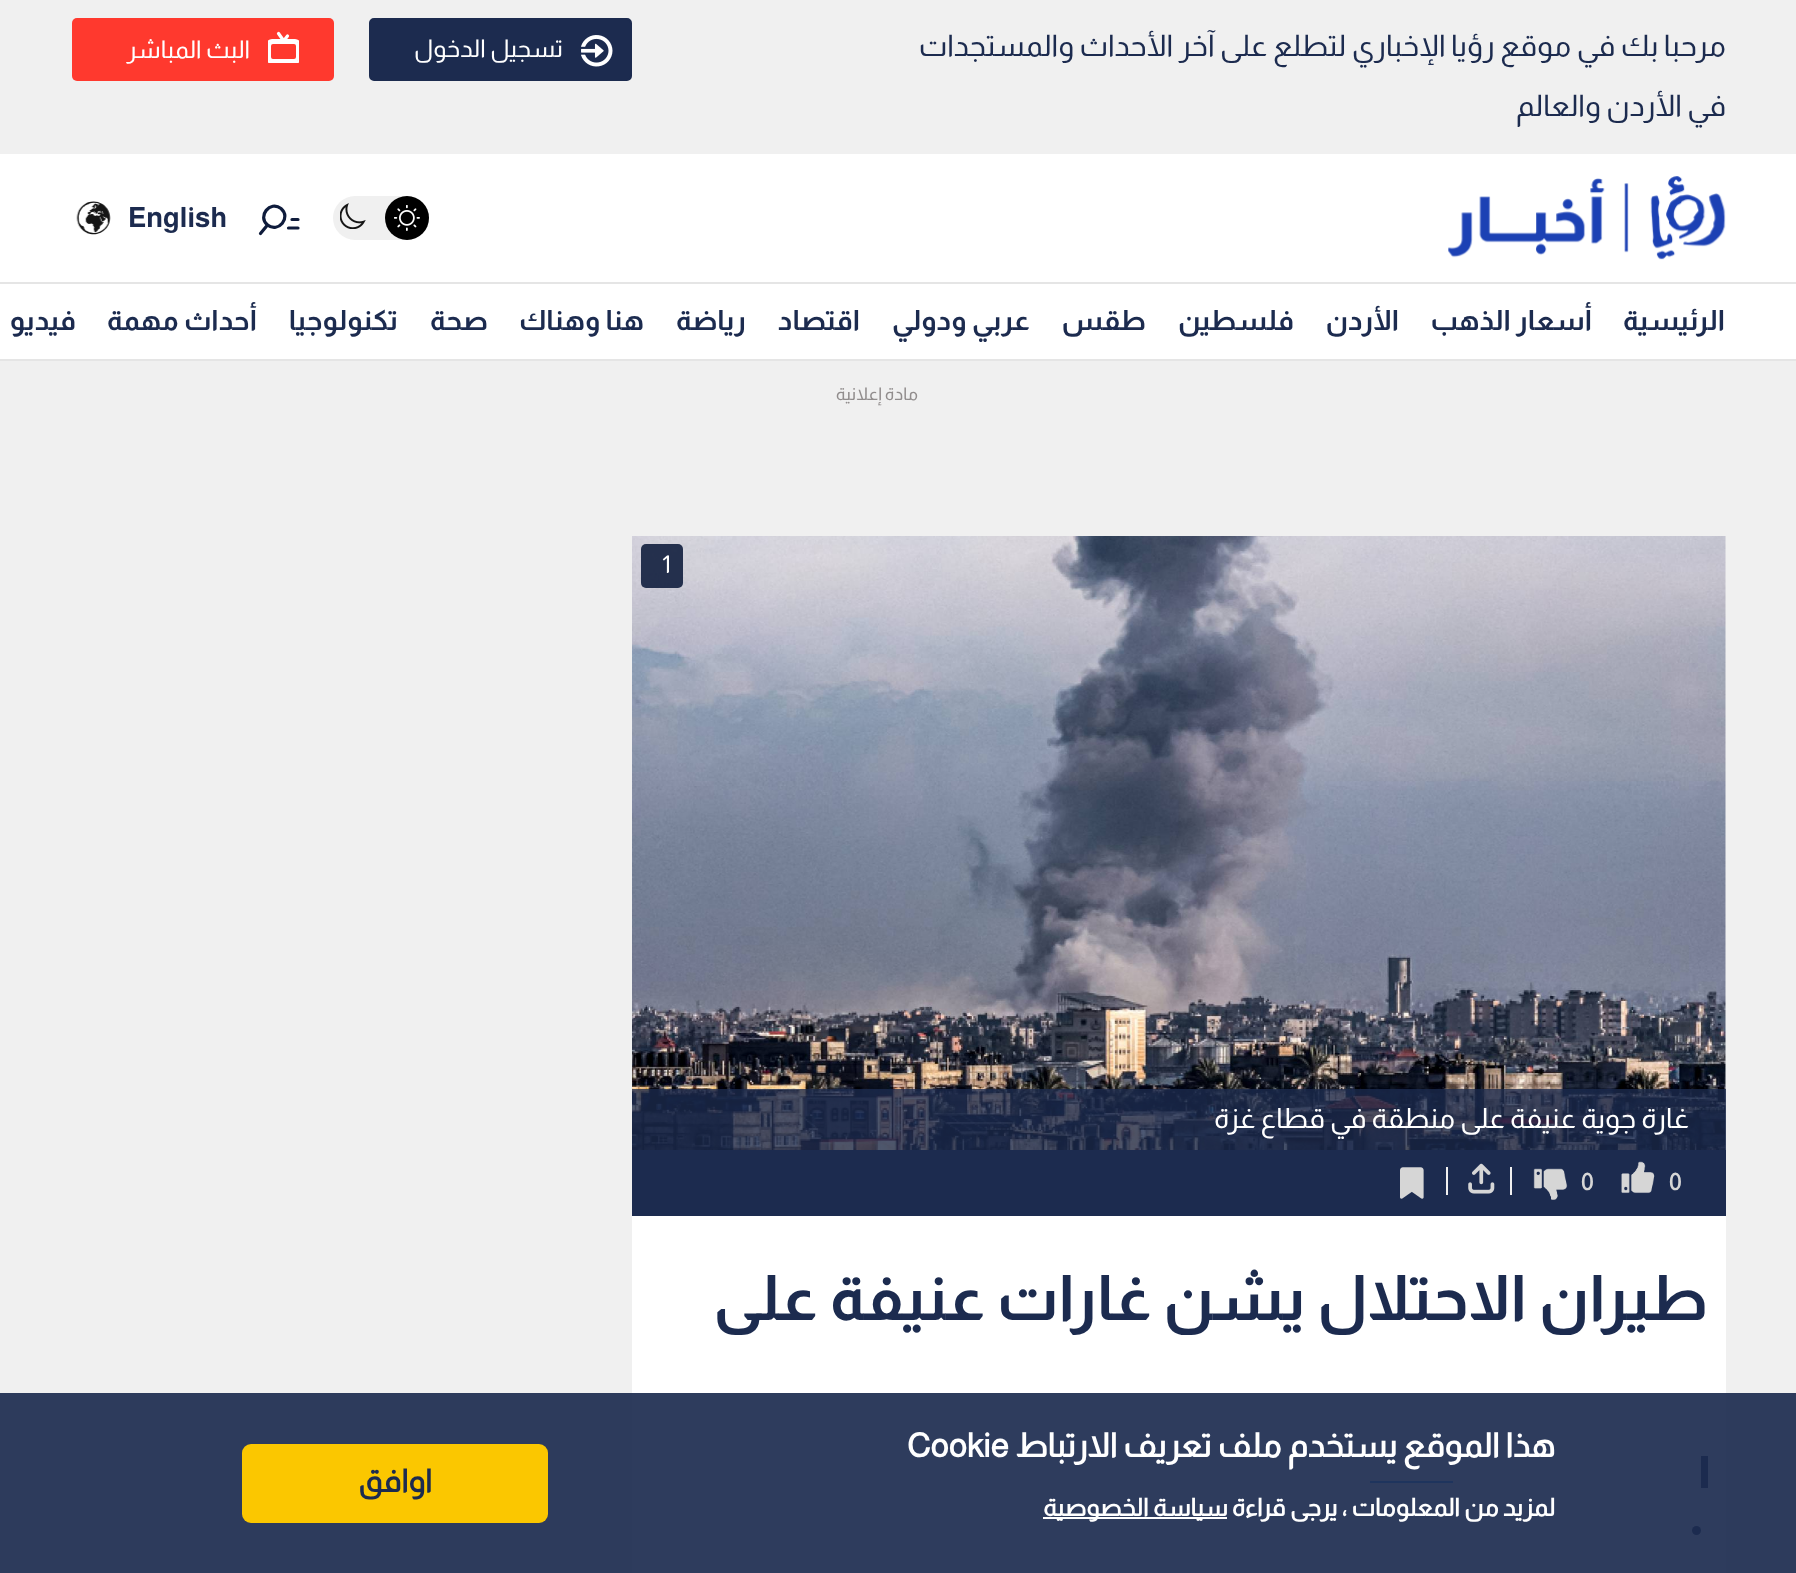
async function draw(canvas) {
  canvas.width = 1796
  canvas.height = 1573
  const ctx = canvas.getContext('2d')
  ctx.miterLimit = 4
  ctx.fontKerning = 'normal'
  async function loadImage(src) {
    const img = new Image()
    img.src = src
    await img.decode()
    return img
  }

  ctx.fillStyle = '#f0f0f0'
  ctx.fillRect(0, 0, 1796, 1573)
  ctx.direction = 'rtl'
  ctx.font = '29.75px Almarai'
  ctx.fillStyle = '#1c2b4f'
  ctx.fillText('مرحبا بك في موقع رؤيا الإخباري لتطلع على آخر الأحداث والمستجدات', 1726, 56)
  ctx.fillText('في الأردن والعالم', 1726, 116)
  ctx.beginPath()
  ctx.roundRect(370, 19, 261, 61, 4)
  ctx.fill()
  ctx.strokeStyle = '#1c2b4f'
  ctx.lineWidth = 2
  ctx.stroke()
  ctx.drawImage(await loadImage('image0.png'), 581, 35, 32, 32)
  ctx.font = '24.5px Almarai'
  ctx.fillStyle = '#fff'
  ctx.fillText('تسجيل الدخول', 563, 57)
  ctx.fillStyle = '#ff392e'
  ctx.beginPath()
  ctx.roundRect(72, 18, 262, 63, 5)
  ctx.fill()
  ctx.save()
  ctx.beginPath()
  ctx.rect(268, 32, 31, 31)
  ctx.clip()
  ctx.beginPath()
  ctx.roundRect(267.5, 40.5, 32, 22, 4.5)
  ctx.strokeStyle = '#fff'
  ctx.lineWidth = 3
  ctx.stroke()
  ctx.restore()
  ctx.beginPath()
  ctx.roundRect(269.5, 42.5, 28, 18, 3.5)
  ctx.strokeStyle = '#fff'
  ctx.lineWidth = 3
  ctx.stroke()
  ctx.beginPath()
  ctx.moveTo(283.5, 40.5)
  ctx.lineTo(278.5, 33.5)
  ctx.moveTo(284, 40.5)
  ctx.lineTo(287.5, 36)
  ctx.lineWidth = 3.2
  ctx.lineCap = 'round'
  ctx.stroke()
  ctx.fillStyle = '#fff'
  ctx.fillText('البث المباشر', 250, 58)
  ctx.fillRect(0, 154, 1796, 205)
  ctx.drawImage(await loadImage('image1.png'), 1448, 176, 278, 84)
  ctx.fillStyle = '#f0f0f0'
  ctx.beginPath()
  ctx.roundRect(333, 196, 96, 44, 22)
  ctx.fill()
  ctx.fillStyle = '#000'
  ctx.beginPath()
  ctx.arc(407, 218, 22, 0, 2 * Math.PI)
  ctx.fill()
  ctx.drawImage(await loadImage('image2.png'), 394, 205, 26, 26)
  ctx.drawImage(await loadImage('image3.png'), 340, 203, 26, 26)
  ctx.beginPath()
  ctx.moveTo(281, 208.5)
  ctx.bezierCurveTo(291.5, 217.5, 278.5, 233.5, 267.5, 225)
  ctx.bezierCurveTo(257, 216.5, 270, 200, 281, 208.5)
  ctx.closePath()
  ctx.strokeStyle = '#0f1c3c'
  ctx.lineCap = 'butt'
  ctx.stroke()
  ctx.beginPath()
  ctx.moveTo(267.5, 225)
  ctx.lineTo(260.5, 233.5)
  ctx.moveTo(288.5, 228)
  ctx.lineTo(298, 228)
  ctx.moveTo(292, 219.5)
  ctx.lineTo(298, 219.5)
  ctx.lineCap = 'round'
  ctx.stroke()
  ctx.direction = 'ltr'
  ctx.font = 'bold 28px Almarai'
  ctx.fillStyle = '#1c2b4f'
  ctx.fillText('English', 128, 227)
  ctx.drawImage(await loadImage('image4.png'), 76, 201, 35, 34)
  ctx.fillStyle = '#e5e5e5'
  ctx.fillRect(0, 282, 1796, 2)
  ctx.fillRect(0, 359, 1796, 2)
  ctx.direction = 'rtl'
  ctx.fillStyle = '#1c2b4f'
  ctx.fillText('الرئيسية', 1725, 330)
  ctx.fillText('أسعار الذهب', 1592, 330)
  ctx.fillText('الأردن', 1399, 330)
  ctx.fillText('فلسطين', 1294, 330)
  ctx.fillText('طقس', 1146, 330)
  ctx.fillText('عربي ودولي', 1030, 330)
  ctx.fillText('اقتصاد', 860, 330)
  ctx.fillText('رياضة', 746, 330)
  ctx.fillText('هنا وهناك', 644, 330)
  ctx.fillText('صحة', 488, 330)
  ctx.fillText('تكنولوجيا', 398, 330)
  ctx.fillText('أحداث مهمة', 257, 330)
  ctx.fillText('فيديو', 76, 330)
  ctx.fillStyle = '#fff'
  ctx.fillRect(632, 1216, 1094, 357)
  ctx.fillStyle = '#1c2b4f'
  ctx.fillRect(1701, 1456, 7, 32)
  ctx.fillStyle = '#389bff'
  ctx.fillRect(1370, 1481, 83, 2)
  ctx.fillStyle = '#1c2b4f'
  ctx.beginPath()
  ctx.arc(1696.5, 1530.5, 4.5, 0, 2 * Math.PI)
  ctx.fill()
  ctx.fillStyle = '#1c2b4feb'
  ctx.fillRect(0, 1393, 1796, 180)
  ctx.font = 'bold 33.25px "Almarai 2"'
  ctx.fillStyle = '#fff'
  ctx.fillText('هذا الموقع يستخدم ملف تعريف الارتباط', 1555, 1457)
  ctx.direction = 'ltr'
  ctx.fillText('Cookie', 907, 1457)
  ctx.direction = 'rtl'
  ctx.font = 'bold 24.5px "Almarai 2"'
  ctx.fillText('لمزيد من المعلومات ، يرجى قراءة', 1555, 1516)
  ctx.fillRect(1043, 1517, 184, 2)
  ctx.fillText('سياسة الخصوصية', 1228, 1516)
  ctx.fillStyle = '#fbc700'
  ctx.beginPath()
  ctx.roundRect(242, 1444, 306, 79, 9)
  ctx.fill()
  ctx.font = 'bold 31.5px "Almarai 2"'
  ctx.fillStyle = '#1c2b4f'
  ctx.fillText('اوافق', 432, 1492)
  ctx.font = '17.5px Almarai'
  ctx.fillStyle = '#918d8d'
  ctx.fillText('مادة إعلانية', 918, 400)
  ctx.fillStyle = '#ececec'
  ctx.fillRect(1725, 536, 1, 614)
  ctx.drawImage(await loadImage('image5.png'), 632, 536, 1094, 614)
  ctx.fillStyle = '#0f1c3ce3'
  ctx.beginPath()
  ctx.roundRect(641, 544, 42, 44, 5)
  ctx.fill()
  ctx.direction = 'ltr'
  ctx.font = '24.5px Almarai'
  ctx.fillStyle = '#fff'
  ctx.fillText('1', 662, 573)
  ctx.fillStyle = '#1c2b4fc7'
  ctx.fillRect(632, 1089, 1094, 61)
  ctx.direction = 'rtl'
  ctx.font = '28px Almarai'
  ctx.fillStyle = '#fff'
  ctx.fillText('غارة جوية عنيفة على منطقة في قطاع غزة', 1689, 1128)
  ctx.fillStyle = '#1c2b4f'
  ctx.fillRect(632, 1150, 1094, 66)
  ctx.direction = 'ltr'
  ctx.font = 'bold 23px "Almarai 2"'
  ctx.fillStyle = '#d6d6d6'
  ctx.fillText('0', 1669, 1190)
  ctx.drawImage(await loadImage('image6.png'), 1621, 1161, 34, 33)
  ctx.fillText('0', 1581, 1190)
  ctx.drawImage(await loadImage('image7.png'), 1533, 1168, 35, 32)
  ctx.fillStyle = '#f0f0f0'
  ctx.fillRect(1510, 1167, 2, 28)
  ctx.drawImage(await loadImage('image8.png'), 1468, 1163, 27, 31)
  ctx.fillRect(1446, 1167, 2, 28)
  ctx.drawImage(await loadImage('image9.png'), 1400, 1167, 24, 32)
  ctx.direction = 'rtl'
  ctx.font = 'bold 63px Almarai'
  ctx.fillStyle = '#1c2b4f'
  ctx.fillText('طيران الاحتلال يشن غارات عنيفة على', 1708, 1320)
}

draw(document.querySelector('canvas'))
